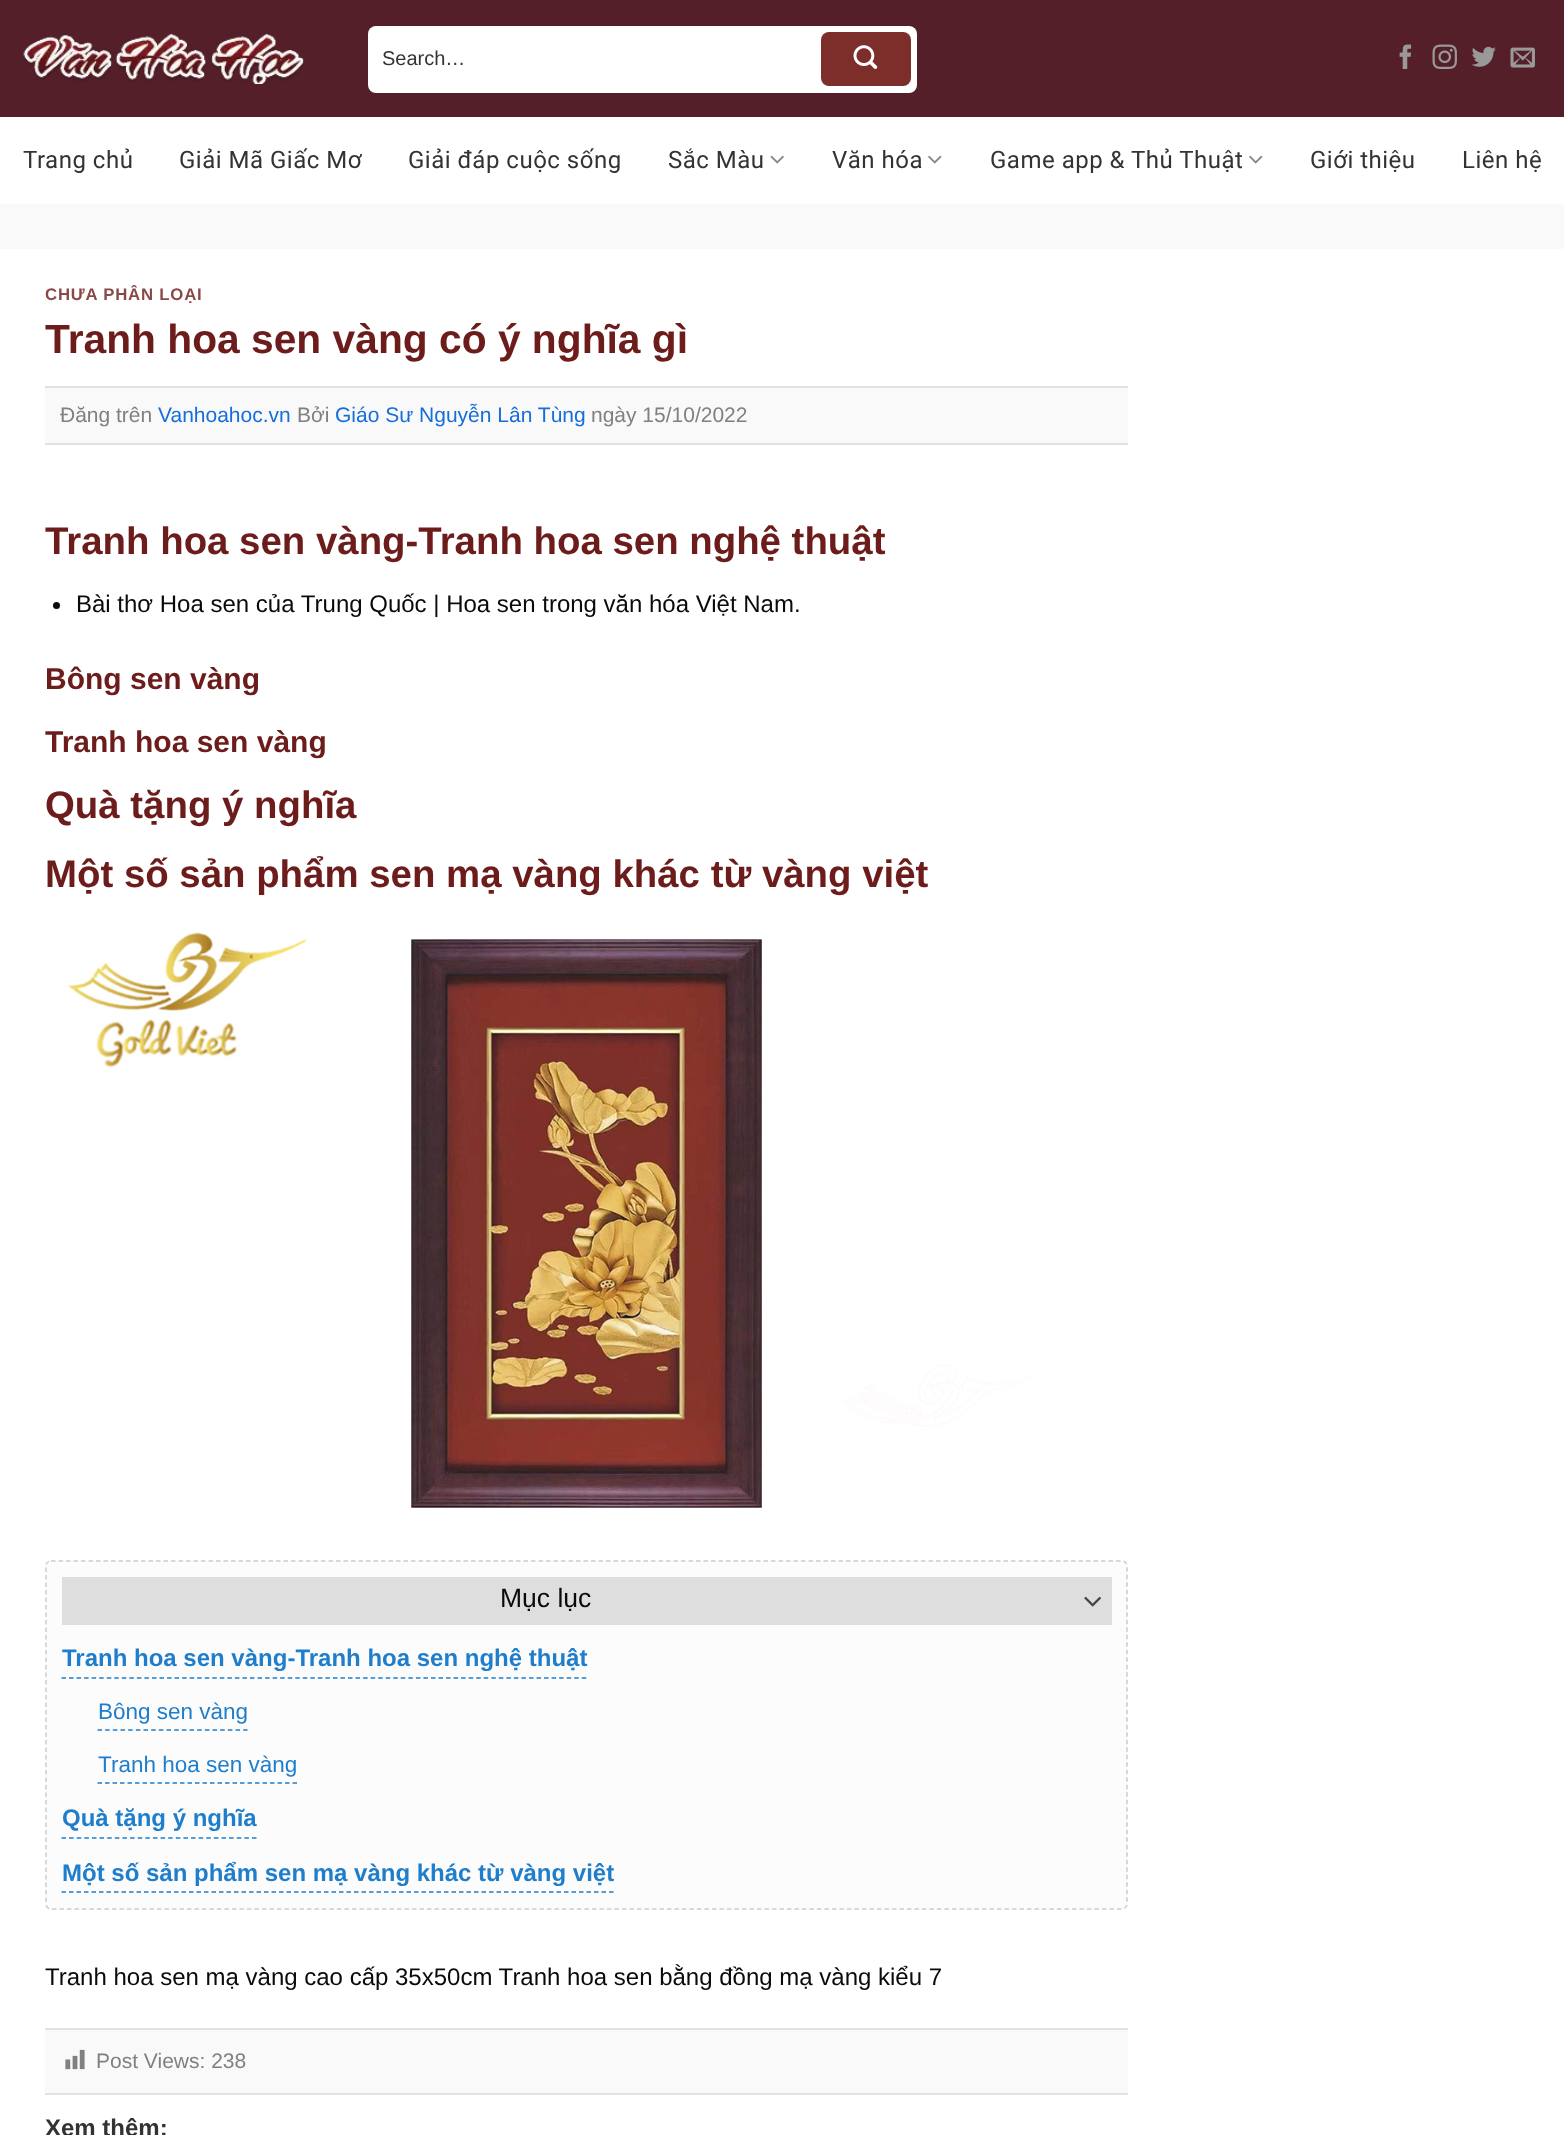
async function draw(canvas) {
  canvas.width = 1564
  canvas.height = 2135
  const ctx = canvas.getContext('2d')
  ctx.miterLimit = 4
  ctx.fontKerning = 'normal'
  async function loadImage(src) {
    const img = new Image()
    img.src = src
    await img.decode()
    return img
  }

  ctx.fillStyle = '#f9f9f9'
  ctx.fillRect(0, 0, 1564, 2135)
  ctx.fillStyle = '#541f29'
  ctx.fillRect(0, 0, 1564, 117)
  ctx.drawImage(await loadImage('image0.png'), 23, 34, 282, 50)
  ctx.fillStyle = '#fff'
  ctx.beginPath()
  ctx.roundRect(368, 26, 549, 67, 8)
  ctx.fill()
  ctx.font = '20px Liberation Sans'
  ctx.fillStyle = '#333'
  ctx.fillText('Search…', 382, 65)
  ctx.fillStyle = '#7e2e2a'
  ctx.beginPath()
  ctx.roundRect(821, 32, 90, 54, 8)
  ctx.fill()
  ctx.drawImage(await loadImage('image1.png'), 853, 45, 25, 24)
  ctx.drawImage(await loadImage('image2.png'), 1399, 44, 13, 25)
  ctx.drawImage(await loadImage('image3.png'), 1432, 44, 25, 25)
  ctx.drawImage(await loadImage('image4.png'), 1471, 46, 25, 21)
  ctx.drawImage(await loadImage('image5.png'), 1510, 47, 25, 21)
  ctx.fillStyle = '#fff'
  ctx.fillRect(0, 117, 1564, 87)
  ctx.letterSpacing = '0.5px'
  ctx.font = '24px Roboto'
  ctx.fillStyle = '#333'
  ctx.fillText('Trang chủ', 23, 168)
  ctx.fillText('Giải Mã Giấc Mơ', 179, 168)
  ctx.fillText('Giải đáp cuộc sống', 408, 168)
  ctx.fillText('Sắc Màu', 668, 168)
  ctx.drawImage(await loadImage('image6.png'), 770, 155, 14, 9)
  ctx.fillText('Văn hóa', 832, 168)
  ctx.drawImage(await loadImage('image7.png'), 928, 155, 14, 9)
  ctx.fillText('Game app & Thủ Thuật', 990, 168)
  ctx.drawImage(await loadImage('image7.png'), 1249, 155, 14, 9)
  ctx.fillText('Giới thiệu', 1310, 168)
  ctx.fillText('Liên hệ', 1462, 168)
  ctx.fillStyle = '#fff'
  ctx.fillRect(0, 249, 1564, 1886)
  ctx.letterSpacing = '0.8px'
  ctx.font = 'bold 16.75px Liberation Sans'
  ctx.fillStyle = '#8a4949'
  ctx.fillText('CHƯA PHÂN LOẠI', 45, 300)
  ctx.letterSpacing = '0px'
  ctx.font = 'bold 40.75px Liberation Sans'
  ctx.fillStyle = '#6d1c1c'
  ctx.fillText('Tranh hoa sen vàng có ý nghĩa gì', 45, 353)
  ctx.fillStyle = '#f9f9f9'
  ctx.fillRect(45, 388, 1083, 55)
  ctx.fillStyle = '#e2e2e2'
  ctx.fillRect(45, 386, 1083, 2)
  ctx.fillRect(45, 443, 1083, 2)
  ctx.font = '21px Liberation Sans'
  ctx.fillStyle = '#808080'
  ctx.fillText('Đăng trên', 60, 422)
  ctx.fillStyle = '#156eda'
  ctx.fillText('Vanhoahoc.vn', 158, 422)
  ctx.fillStyle = '#808080'
  ctx.fillText('Bởi', 297, 422)
  ctx.fillStyle = '#156eda'
  ctx.fillText('Giáo Sư Nguyễn Lân Tùng', 335, 422)
  ctx.fillStyle = '#808080'
  ctx.fillText('ngày 15/10/2022', 591, 422)
  ctx.font = 'bold 38.4px Liberation Sans'
  ctx.fillStyle = '#6d1c1c'
  ctx.fillText('Tranh hoa sen vàng-Tranh hoa sen nghệ thuật', 45, 554)
  ctx.fillStyle = '#0a0a0a'
  ctx.beginPath()
  ctx.arc(56.5, 605.5, 3.5, 0, 2 * Math.PI)
  ctx.fill()
  ctx.font = '24px Liberation Sans'
  ctx.fillText('Bài thơ Hoa sen của Trung Quốc | Hoa sen trong văn hóa Việt Nam.', 76, 612)
  ctx.font = 'bold 30px Liberation Sans'
  ctx.fillStyle = '#6d1c1c'
  ctx.fillText('Bông sen vàng', 45, 689)
  ctx.fillText('Tranh hoa sen vàng', 45, 752)
  ctx.font = 'bold 38.4px Liberation Sans'
  ctx.fillText('Quà tặng ý nghĩa', 45, 818)
  ctx.fillText('Một số sản phẩm sen mạ vàng khác từ vàng việt', 45, 887)
  ctx.drawImage(await loadImage('image8.png'), 68, 932, 963, 576)
  ctx.fillStyle = '#fcfcfc'
  ctx.beginPath()
  ctx.roundRect(45, 1560, 1083, 350, 6)
  ctx.fill()
  ctx.beginPath()
  ctx.moveTo(51, 1561)
  ctx.lineTo(1122, 1561)
  ctx.bezierCurveTo(1125, 1561, 1127, 1563, 1127, 1566)
  ctx.lineTo(1127, 1903.5)
  ctx.bezierCurveTo(1127, 1906.5, 1125, 1909, 1122, 1909)
  ctx.lineTo(51, 1909)
  ctx.bezierCurveTo(48, 1909, 46, 1906.5, 46, 1903.5)
  ctx.lineTo(46, 1566)
  ctx.bezierCurveTo(46, 1563, 48, 1561, 51, 1561)
  ctx.closePath()
  ctx.strokeStyle = '#ccc'
  ctx.lineWidth = 1.5
  ctx.setLineDash([4.5, 3])
  ctx.stroke()
  ctx.fillStyle = '#dedede'
  ctx.fillRect(62, 1577, 1050, 48)
  ctx.font = '26.5px Liberation Sans'
  ctx.fillStyle = '#0a0a0a'
  ctx.fillText('Mục lục', 500, 1607)
  ctx.drawImage(await loadImage('image9.png'), 1084, 1596, 17, 11)
  ctx.beginPath()
  ctx.moveTo(61.5, 1678)
  ctx.lineTo(586.5, 1678)
  ctx.strokeStyle = '#1f7ecb'
  ctx.setLineDash([4.5, 3.04])
  ctx.stroke()
  ctx.save()
  ctx.beginPath()
  ctx.rect(62, 1625, 1050, 159)
  ctx.clip()
  ctx.font = 'bold 24px Liberation Sans'
  ctx.fillStyle = '#1f7ecb'
  ctx.fillText('Tranh hoa sen vàng-Tranh hoa sen nghệ thuật', 62, 1666)
  ctx.restore()
  ctx.beginPath()
  ctx.moveTo(97.5, 1730)
  ctx.lineTo(247.5, 1730)
  ctx.setLineDash([4.5, 3.17])
  ctx.stroke()
  ctx.font = '22.5px Liberation Sans'
  ctx.fillStyle = '#1f7ecb'
  ctx.fillText('Bông sen vàng', 98, 1719)
  ctx.beginPath()
  ctx.moveTo(97.5, 1783)
  ctx.lineTo(297, 1783)
  ctx.setLineDash([4.5, 3])
  ctx.stroke()
  ctx.fillText('Tranh hoa sen vàng', 98, 1772)
  ctx.beginPath()
  ctx.moveTo(61.5, 1838)
  ctx.lineTo(256.5, 1838)
  ctx.setLineDash([4.5, 3.12])
  ctx.stroke()
  ctx.font = 'bold 24px Liberation Sans'
  ctx.fillText('Quà tặng ý nghĩa', 62, 1826)
  ctx.beginPath()
  ctx.moveTo(61.5, 1892)
  ctx.lineTo(613.5, 1892)
  ctx.setLineDash([4.5, 3])
  ctx.stroke()
  ctx.fillText('Một số sản phẩm sen mạ vàng khác từ vàng việt', 62, 1881)
  ctx.font = '24px Liberation Sans'
  ctx.fillStyle = '#0a0a0a'
  ctx.fillText('Tranh hoa sen mạ vàng cao cấp 35x50cm Tranh hoa sen bằng đồng mạ vàng kiểu 7', 45, 1985)
  ctx.fillStyle = '#f9f9f9'
  ctx.fillRect(45, 2030, 1083, 63)
  ctx.fillStyle = '#e2e2e2'
  ctx.fillRect(45, 2028, 1083, 2)
  ctx.fillRect(45, 2093, 1083, 2)
  ctx.drawImage(await loadImage('image10.png'), 65, 2049, 20, 21)
  ctx.font = '21px Liberation Sans'
  ctx.fillStyle = '#808080'
  ctx.fillText('Post Views: 238', 96, 2068)
  ctx.font = 'bold 24px Liberation Sans'
  ctx.fillStyle = '#333'
  ctx.fillText('Xem thêm:', 45, 2136)
}

draw(document.querySelector('canvas'))
